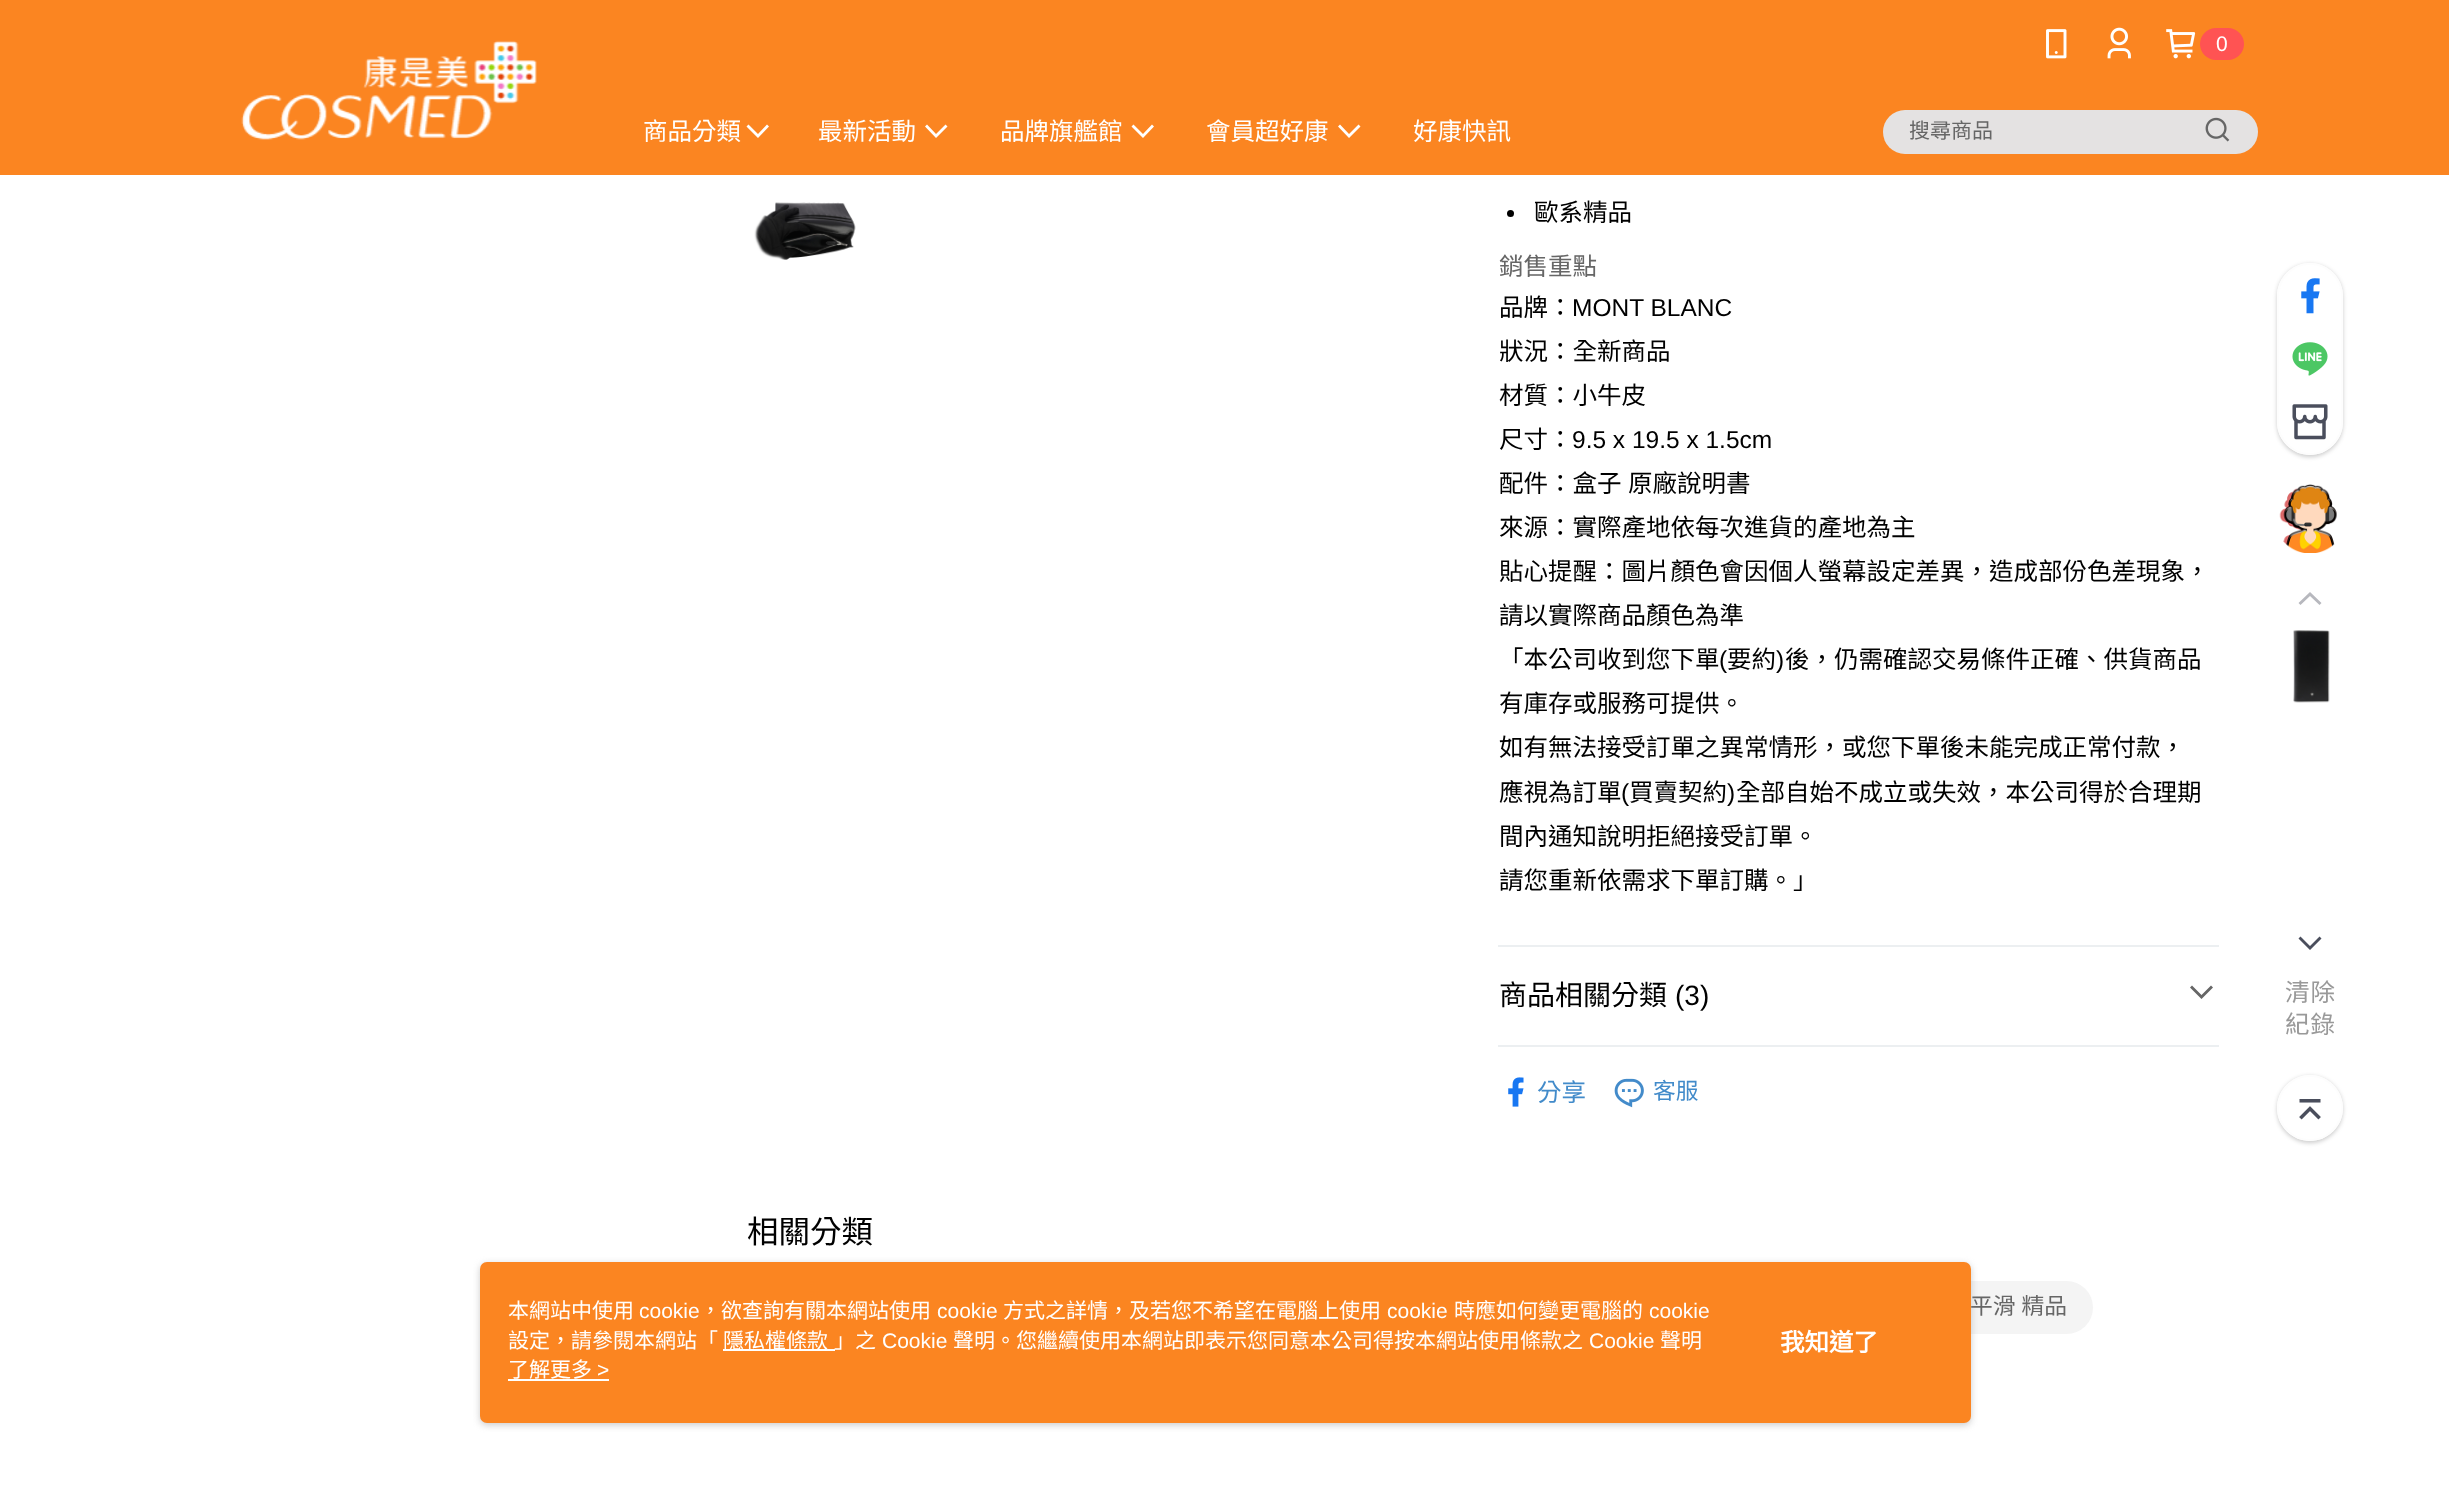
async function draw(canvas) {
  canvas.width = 2449
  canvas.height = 1503
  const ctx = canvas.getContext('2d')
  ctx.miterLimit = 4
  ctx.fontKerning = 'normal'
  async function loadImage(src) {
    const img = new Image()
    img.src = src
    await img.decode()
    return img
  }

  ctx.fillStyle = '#fff'
  ctx.fillRect(0, 0, 2449, 1503)
  ctx.fillStyle = '#fb8521'
  ctx.fillRect(0, 0, 2449, 175)
  ctx.drawImage(await loadImage('image0.png'), 241, 40, 296, 100)
  ctx.drawImage(await loadImage('image1.png'), 2046, 29, 21, 30)
  ctx.drawImage(await loadImage('image2.png'), 2107, 27, 24, 32)
  ctx.drawImage(await loadImage('image3.png'), 2166, 29, 30, 30)
  ctx.fillStyle = '#ff5353'
  ctx.beginPath()
  ctx.roundRect(2200, 28, 44, 32, 16)
  ctx.fill()
  ctx.font = '21px Liberation Sans'
  ctx.fillStyle = '#fff'
  ctx.fillText('0', 2216, 51)
  ctx.font = '24.5px Noto Sans CJK TC'
  ctx.fillText('商品分類', 643, 140)
  ctx.beginPath()
  ctx.moveTo(748.5, 124.5)
  ctx.lineTo(746.5, 126.5)
  ctx.lineTo(758, 138)
  ctx.lineTo(769, 126.5)
  ctx.lineTo(767, 124.5)
  ctx.lineTo(758, 134)
  ctx.closePath()
  ctx.fill()
  ctx.fillText('最新活動', 818, 140)
  ctx.beginPath()
  ctx.moveTo(927, 124.5)
  ctx.lineTo(925, 126.5)
  ctx.lineTo(936, 138)
  ctx.lineTo(947.5, 126.5)
  ctx.lineTo(945.5, 124.5)
  ctx.lineTo(936, 134)
  ctx.closePath()
  ctx.fill()
  ctx.fillText('品牌旗艦館', 1000, 140)
  ctx.beginPath()
  ctx.moveTo(1133.5, 124.5)
  ctx.lineTo(1131.5, 126.5)
  ctx.lineTo(1143, 138)
  ctx.lineTo(1154, 126.5)
  ctx.lineTo(1152, 124.5)
  ctx.lineTo(1143, 134)
  ctx.closePath()
  ctx.fill()
  ctx.fillText('會員超好康', 1206, 140)
  ctx.beginPath()
  ctx.moveTo(1340, 124.5)
  ctx.lineTo(1338, 126.5)
  ctx.lineTo(1349, 138)
  ctx.lineTo(1360.5, 126.5)
  ctx.lineTo(1358.5, 124.5)
  ctx.lineTo(1349, 134)
  ctx.closePath()
  ctx.fill()
  ctx.fillText('好康快訊', 1413, 140)
  ctx.fillStyle = '#e4e2e2'
  ctx.beginPath()
  ctx.roundRect(1883, 110, 375, 44, 22)
  ctx.fill()
  ctx.font = '21px Noto Sans CJK TC'
  ctx.fillStyle = '#666'
  ctx.fillText('搜尋商品', 1909, 138)
  ctx.drawImage(await loadImage('image4.png'), 2205, 117, 25, 25)
  ctx.drawImage(await loadImage('image5.png'), 754, 202, 102, 58)
  ctx.fillStyle = '#eceff1'
  ctx.fillRect(1498, 945, 721, 2)
  ctx.fillStyle = '#000'
  ctx.beginPath()
  ctx.arc(1510.5, 213.5, 3.5, 0, 2 * Math.PI)
  ctx.fill()
  ctx.font = '24.5px Noto Sans CJK TC'
  ctx.fillText('歐系精品', 1534, 221)
  ctx.fillStyle = '#666'
  ctx.fillText('銷售重點', 1499, 275)
  ctx.fillStyle = '#000'
  ctx.fillText('品牌：', 1499, 316)
  ctx.font = '24.5px Liberation Sans'
  ctx.fillText('MONT BLANC', 1572, 316)
  ctx.font = '24.5px Noto Sans CJK TC'
  ctx.fillText('狀況：全新商品', 1499, 360)
  ctx.fillText('材質：小牛皮', 1499, 404)
  ctx.fillText('尺寸：', 1499, 448)
  ctx.font = '24.5px Liberation Sans'
  ctx.fillText('9.5 x 19.5 x 1.5cm', 1572, 448)
  ctx.wordSpacing = '1px'
  ctx.font = '24.5px Noto Sans CJK TC'
  ctx.fillText('配件：盒子 原廠說明書', 1499, 492)
  ctx.wordSpacing = '0px'
  ctx.fillText('來源：實際產地依每次進貨的產地為主', 1499, 536)
  ctx.fillText('貼心提醒：圖片顏色會因個人螢幕設定差異，造成部份色差現象，', 1499, 580)
  ctx.fillText('請以實際商品顏色為準', 1499, 624)
  ctx.fillText('「本公司收到您下單', 1499, 668)
  ctx.font = '24.5px Liberation Sans'
  ctx.fillText('(', 1719, 668)
  ctx.font = '24.5px Noto Sans CJK TC'
  ctx.fillText('要約', 1727, 668)
  ctx.font = '24.5px Liberation Sans'
  ctx.fillText(')', 1776, 668)
  ctx.font = '24.5px Noto Sans CJK TC'
  ctx.fillText('後，仍需確認交易條件正確、供貨商品', 1785, 668)
  ctx.fillText('有庫存或服務可提供。', 1499, 712)
  ctx.fillText('如有無法接受訂單之異常情形，或您下單後未能完成正常付款，', 1499, 756)
  ctx.fillText('應視為訂單', 1499, 801)
  ctx.font = '24.5px Liberation Sans'
  ctx.fillText('(', 1621, 801)
  ctx.font = '24.5px Noto Sans CJK TC'
  ctx.fillText('買賣契約', 1629, 801)
  ctx.font = '24.5px Liberation Sans'
  ctx.fillText(')', 1727, 801)
  ctx.font = '24.5px Noto Sans CJK TC'
  ctx.fillText('全部自始不成立或失效，本公司得於合理期', 1736, 801)
  ctx.fillText('間內通知說明拒絕接受訂單。', 1499, 845)
  ctx.fillText('請您重新依需求下單訂購。」', 1499, 889)
  ctx.fillStyle = '#eceff1'
  ctx.fillRect(1498, 1045, 721, 2)
  ctx.font = '28px Noto Sans CJK TC'
  ctx.fillStyle = '#000'
  ctx.fillText('商品相關分類', 1499, 1005)
  ctx.font = '28px Liberation Sans'
  ctx.fillText('(3)', 1675, 1005)
  ctx.fillStyle = '#666'
  ctx.beginPath()
  ctx.moveTo(2192, 985.5)
  ctx.lineTo(2190, 987.5)
  ctx.lineTo(2201.5, 999)
  ctx.lineTo(2213, 987.5)
  ctx.lineTo(2211, 985.5)
  ctx.lineTo(2201.5, 995)
  ctx.closePath()
  ctx.fill()
  ctx.drawImage(await loadImage('image6.png'), 1508, 1077, 16, 30)
  ctx.font = '24.5px Noto Sans CJK TC'
  ctx.fillStyle = '#428bca'
  ctx.fillText('分享', 1537, 1101)
  ctx.drawImage(await loadImage('image7.png'), 1614, 1078, 30, 30)
  ctx.font = '22.75px Noto Sans CJK TC'
  ctx.fillText('客服', 1653, 1099)
  ctx.font = '31.5px Noto Sans CJK TC'
  ctx.fillStyle = '#000'
  ctx.fillText('相關分類', 747, 1243)
  ctx.fillStyle = '#f4f4f4'
  ctx.beginPath()
  ctx.roundRect(1944, 1281, 149, 53, 26.5)
  ctx.fill()
  ctx.wordSpacing = '1px'
  ctx.font = '22.75px Noto Sans CJK TC'
  ctx.fillStyle = '#666'
  ctx.fillText('平滑 精品', 1970, 1314)
  ctx.save()
  ctx.beginPath()
  ctx.moveTo(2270, 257)
  ctx.lineTo(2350, 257)
  ctx.lineTo(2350, 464)
  ctx.lineTo(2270, 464)
  ctx.closePath()
  ctx.moveTo(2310, 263)
  ctx.bezierCurveTo(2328, 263, 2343, 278, 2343, 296)
  ctx.lineTo(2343, 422)
  ctx.bezierCurveTo(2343, 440, 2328, 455, 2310, 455)
  ctx.bezierCurveTo(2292, 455, 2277, 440, 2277, 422)
  ctx.lineTo(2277, 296)
  ctx.bezierCurveTo(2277, 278, 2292, 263, 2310, 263)
  ctx.closePath()
  ctx.clip('evenodd')
  ctx.fillStyle = '#00000033'
  ctx.filter = 'blur(2px)'
  ctx.beginPath()
  ctx.roundRect(2277, 264, 66, 193, 33)
  ctx.fill()
  ctx.filter = 'none'
  ctx.restore()
  ctx.fillStyle = '#ffffffe6'
  ctx.beginPath()
  ctx.roundRect(2278, 264, 64, 190, 32)
  ctx.fill()
  ctx.strokeStyle = '#fdfdfd'
  ctx.lineWidth = 2
  ctx.stroke()
  ctx.drawImage(await loadImage('image8.png'), 2301, 278, 19, 36)
  ctx.drawImage(await loadImage('image9.png'), 2292, 342, 36, 34)
  ctx.drawImage(await loadImage('image10.png'), 2292, 404, 36, 36)
  ctx.drawImage(await loadImage('image11.png'), 2279, 484, 58, 69)
  ctx.fillStyle = '#b7b8be'
  ctx.beginPath()
  ctx.moveTo(2319.5, 605)
  ctx.lineTo(2321.5, 603)
  ctx.lineTo(2310, 592)
  ctx.lineTo(2298.5, 603)
  ctx.lineTo(2300.5, 605)
  ctx.lineTo(2310, 596)
  ctx.closePath()
  ctx.fill()
  ctx.drawImage(await loadImage('image12.png'), 2293, 630, 37, 73)
  ctx.fillStyle = '#4a4e5c'
  ctx.beginPath()
  ctx.moveTo(2300.5, 936.5)
  ctx.lineTo(2298.5, 938.5)
  ctx.lineTo(2310, 950)
  ctx.lineTo(2321.5, 938.5)
  ctx.lineTo(2319.5, 936.5)
  ctx.lineTo(2310, 946)
  ctx.closePath()
  ctx.fill()
  ctx.letterSpacing = '1px'
  ctx.wordSpacing = '0px'
  ctx.font = '24.5px Noto Sans CJK TC'
  ctx.fillStyle = '#999'
  ctx.fillText('清除', 2285, 1001)
  ctx.fillText('紀錄', 2285, 1033)
  ctx.save()
  ctx.beginPath()
  ctx.moveTo(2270, 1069)
  ctx.lineTo(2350, 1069)
  ctx.lineTo(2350, 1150)
  ctx.lineTo(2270, 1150)
  ctx.closePath()
  ctx.moveTo(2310, 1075)
  ctx.bezierCurveTo(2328, 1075, 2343, 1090, 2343, 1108)
  ctx.bezierCurveTo(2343, 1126, 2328, 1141, 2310, 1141)
  ctx.bezierCurveTo(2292, 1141, 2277, 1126, 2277, 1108)
  ctx.bezierCurveTo(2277, 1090, 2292, 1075, 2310, 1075)
  ctx.closePath()
  ctx.clip('evenodd')
  ctx.fillStyle = '#00000033'
  ctx.filter = 'blur(2px)'
  ctx.beginPath()
  ctx.roundRect(2277, 1076, 66, 67, 33)
  ctx.fill()
  ctx.filter = 'none'
  ctx.restore()
  ctx.fillStyle = '#ffffffe6'
  ctx.beginPath()
  ctx.arc(2310, 1108, 32, 0, 2 * Math.PI)
  ctx.fill()
  ctx.stroke()
  ctx.drawImage(await loadImage('image13.png'), 2299, 1099, 22, 21)
  ctx.fillStyle = '#97979780'
  ctx.filter = 'blur(3.5px)'
  ctx.beginPath()
  ctx.roundRect(480, 1264, 1491, 161, 7)
  ctx.fill()
  ctx.filter = 'none'
  ctx.fillStyle = '#fb8521'
  ctx.beginPath()
  ctx.roundRect(480, 1262, 1491, 161, 7)
  ctx.fill()
  ctx.letterSpacing = '0px'
  ctx.font = '21px Noto Sans CJK TC'
  ctx.fillStyle = '#fff'
  ctx.fillText('本網站中使用', 508, 1318)
  ctx.font = '21px Liberation Sans'
  ctx.fillText('cookie', 639, 1318)
  ctx.font = '21px Noto Sans CJK TC'
  ctx.fillText('，欲查詢有關本網站使用', 700, 1318)
  ctx.font = '21px Liberation Sans'
  ctx.fillText('cookie', 937, 1318)
  ctx.font = '21px Noto Sans CJK TC'
  ctx.fillText('方式之詳情，及若您不希望在電腦上使用', 1003, 1318)
  ctx.font = '21px Liberation Sans'
  ctx.fillText('cookie', 1387, 1318)
  ctx.font = '21px Noto Sans CJK TC'
  ctx.fillText('時應如何變更電腦的', 1454, 1318)
  ctx.font = '21px Liberation Sans'
  ctx.fillText('cookie', 1649, 1318)
  ctx.font = '21px Noto Sans CJK TC'
  ctx.fillText('設定，請參閱本網站「', 508, 1348)
  ctx.fillRect(723, 1349, 112, 2)
  ctx.fillText('隱私權條款', 723, 1348)
  ctx.fillText('」之', 834, 1348)
  ctx.font = '21px Liberation Sans'
  ctx.fillText('Cookie', 882, 1348)
  ctx.font = '21px Noto Sans CJK TC'
  ctx.fillText('聲明。您繼續使用本網站即表示您同意本公司得按本網站使用條款之', 953, 1348)
  ctx.font = '21px Liberation Sans'
  ctx.fillText('Cookie', 1589, 1348)
  ctx.font = '21px Noto Sans CJK TC'
  ctx.fillText('聲明', 1660, 1348)
  ctx.fillText('了解更多', 508, 1377)
  ctx.font = '21px Liberation Sans'
  ctx.fillText('>', 597, 1377)
  ctx.fillRect(508, 1379, 101, 2)
  ctx.font = 'bold 24.5px Noto Sans CJK TC'
  ctx.fillText('我知道了', 1780, 1351)
}

draw(document.querySelector('canvas'))
